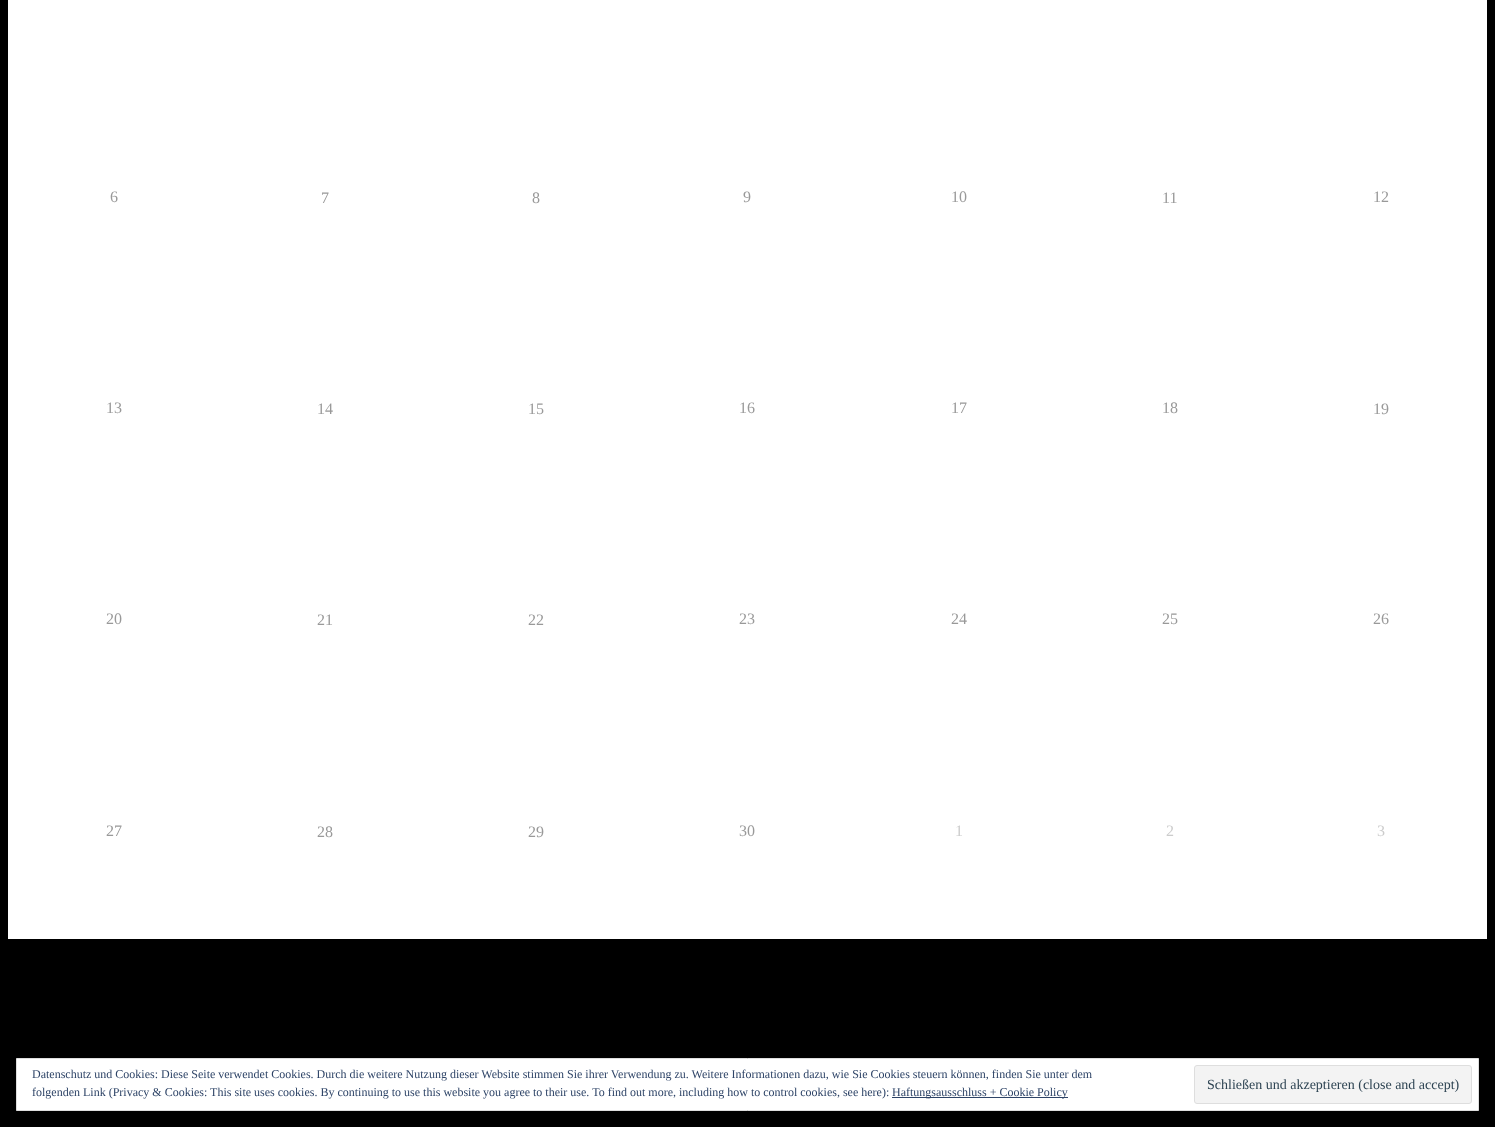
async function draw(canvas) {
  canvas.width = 1495
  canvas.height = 1127
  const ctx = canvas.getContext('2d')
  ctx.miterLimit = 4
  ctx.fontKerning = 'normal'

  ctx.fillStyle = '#000'
  ctx.fillRect(0, 0, 1495, 1127)
  ctx.fillStyle = '#fff'
  ctx.fillRect(8, 0, 1479, 939)
  ctx.font = '16px Liberation Serif'
  ctx.fillStyle = '#999'
  ctx.fillText('6', 110, 202)
  ctx.fillText('7', 321, 203)
  ctx.fillText('8', 532, 203)
  ctx.fillText('9', 743, 202)
  ctx.fillText('10', 951, 202)
  ctx.fillText('11', 1162, 203)
  ctx.fillText('12', 1373, 202)
  ctx.fillText('13', 106, 413)
  ctx.fillText('14', 317, 414)
  ctx.fillText('15', 528, 414)
  ctx.fillText('16', 739, 413)
  ctx.fillText('17', 951, 413)
  ctx.fillText('18', 1162, 413)
  ctx.fillText('19', 1373, 414)
  ctx.fillText('20', 106, 624)
  ctx.fillText('21', 317, 625)
  ctx.fillText('22', 528, 625)
  ctx.fillText('23', 739, 624)
  ctx.fillText('24', 951, 624)
  ctx.fillText('25', 1162, 624)
  ctx.fillText('26', 1373, 624)
  ctx.fillText('27', 106, 836)
  ctx.fillText('28', 317, 837)
  ctx.fillText('29', 528, 837)
  ctx.fillText('30', 739, 836)
  ctx.fillStyle = '#ccc'
  ctx.fillText('1', 955, 836)
  ctx.fillText('2', 1166, 836)
  ctx.fillText('3', 1377, 836)
  ctx.fillStyle = '#fff'
  ctx.beginPath()
  ctx.rect(16.5, 1058.5, 1462, 52)
  ctx.fill()
  ctx.strokeStyle = '#dedede'
  ctx.stroke()
  ctx.font = '12px Liberation Serif'
  ctx.fillStyle = '#2e4467'
  ctx.fillText('Datenschutz und Cookies: Diese Seite verwendet Cookies. Durch die weitere Nutzung dieser Website stimmen Sie ihrer Verwendung zu. Weitere Informationen dazu, wie Sie Cookies steuern können, finden Sie unter dem', 32, 1078)
  ctx.fillText('folgenden Link (Privacy & Cookies: This site uses cookies. By continuing to use this website you agree to their use. To find out more, including how to control cookies, see here):', 32, 1096)
  ctx.fillRect(892, 1097, 176, 1)
  ctx.fillText('Haftungsausschluss + Cookie Policy', 892, 1096)
  ctx.fillStyle = '#f3f3f3'
  ctx.beginPath()
  ctx.roundRect(1194.5, 1065.5, 277, 38, 2.5)
  ctx.fill()
  ctx.stroke()
  ctx.font = '14px Liberation Serif'
  ctx.fillStyle = '#2e4453'
  ctx.fillText('Schließen und akzeptieren (close and accept)', 1207, 1089)
}

draw(document.querySelector('canvas'))
